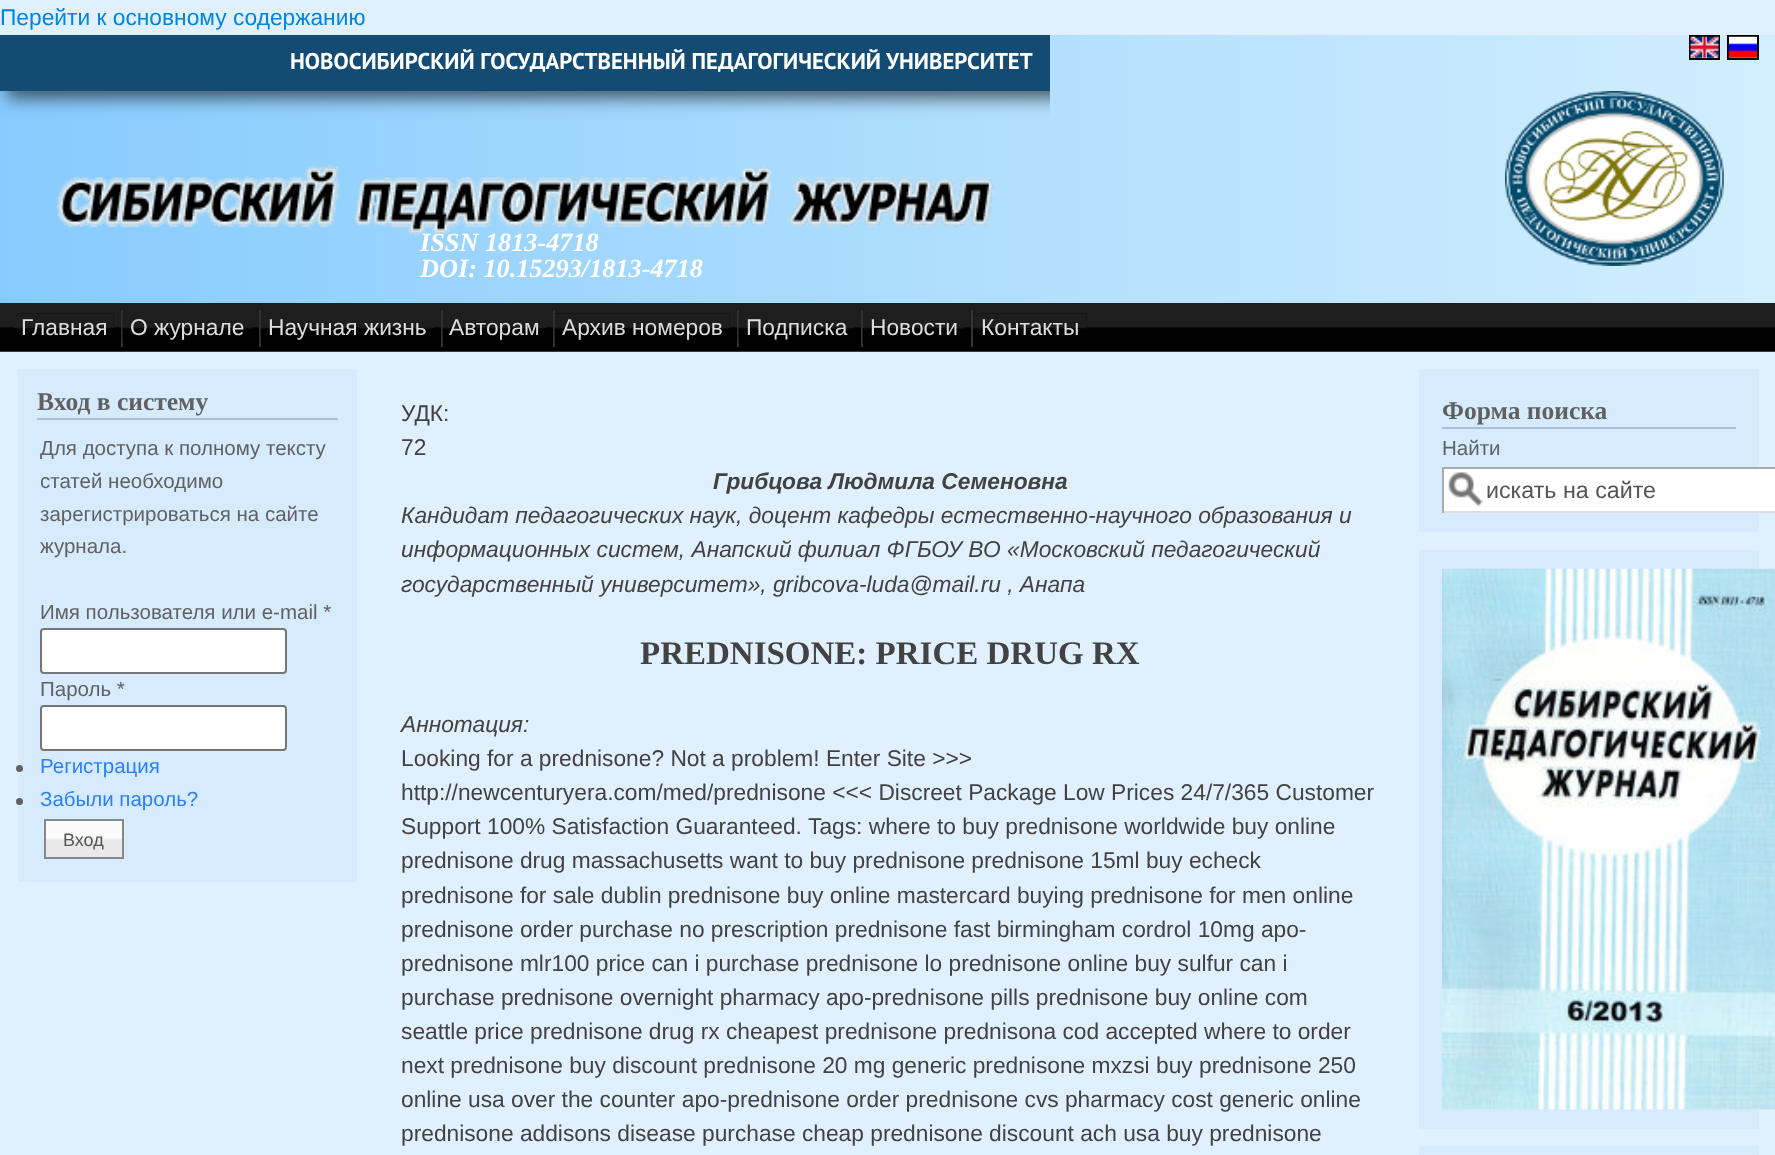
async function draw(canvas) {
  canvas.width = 1775
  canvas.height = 1155
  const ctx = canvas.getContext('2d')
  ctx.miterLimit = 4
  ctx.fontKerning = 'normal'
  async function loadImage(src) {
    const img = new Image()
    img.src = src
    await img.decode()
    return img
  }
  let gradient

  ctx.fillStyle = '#e1f0ff'
  ctx.fillRect(0, 0, 1775, 1155)
  ctx.font = '22.75px Liberation Sans'
  ctx.fillStyle = '#0185e4'
  ctx.fillText('Перейти к основному содержанию', 0, 25)
  gradient = ctx.createLinearGradient(0, 35, 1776, 35)
  gradient.addColorStop(0, '#87cbfe')
  gradient.addColorStop(1, '#d2eefe')
  ctx.fillStyle = gradient
  ctx.fillRect(0, 35, 1775, 268)
  ctx.fillStyle = '#144b73'
  ctx.fillRect(0, 35, 1050, 56)
  ctx.font = 'bold 22.75px PT Sans'
  ctx.fillStyle = '#fff'
  ctx.fillText('НОВОСИБИРСКИЙ ГОСУДАРСТВЕННЫЙ ПЕДАГОГИЧЕСКИЙ УНИВЕРСИТЕТ', 290, 69)
  ctx.drawImage(await loadImage('image0.png'), 0, 91, 1050, 145)
  ctx.strokeStyle = '#000'
  ctx.lineWidth = 2
  ctx.strokeRect(1690, 36, 29, 23)
  ctx.strokeRect(1728, 36, 30, 23)
  ctx.drawImage(await loadImage('image1.png'), 1690, 36, 29, 22)
  ctx.drawImage(await loadImage('image2.png'), 1729, 36, 28, 22)
  ctx.font = 'italic bold 26.25px Liberation Serif'
  ctx.fillText('ISSN 1813-4718', 420, 251)
  ctx.fillText('DOI: 10.15293/1813-4718', 420, 277)
  ctx.drawImage(await loadImage('image3.png'), 1505, 91, 219, 175)
  ctx.drawImage(await loadImage('image4.png'), 0, 303, 1775, 49)
  ctx.fillStyle = '#333'
  ctx.fillRect(121, 310, 2, 37)
  ctx.fillStyle = '#000'
  ctx.fillRect(14, 313, 100, 15)
  ctx.drawImage(await loadImage('image5.png'), 14, 313, 100, 16)
  ctx.font = '22.75px Liberation Sans'
  ctx.fillStyle = '#ddd'
  ctx.fillText('Главная', 21, 335)
  ctx.fillStyle = '#333'
  ctx.fillRect(259, 310, 2, 37)
  ctx.drawImage(await loadImage('image6.png'), 122, 313, 130, 30)
  ctx.fillStyle = '#ddd'
  ctx.fillText('О журнале', 130, 335)
  ctx.fillStyle = '#333'
  ctx.fillRect(441, 310, 2, 37)
  ctx.drawImage(await loadImage('image7.png'), 260, 313, 174, 30)
  ctx.fillStyle = '#ddd'
  ctx.fillText('Научная жизнь', 268, 335)
  ctx.fillStyle = '#333'
  ctx.fillRect(553, 310, 2, 37)
  ctx.drawImage(await loadImage('image8.png'), 442, 313, 104, 30)
  ctx.fillStyle = '#ddd'
  ctx.fillText('Авторам', 449, 335)
  ctx.fillStyle = '#333'
  ctx.fillRect(737, 310, 2, 37)
  ctx.fillStyle = '#000'
  ctx.fillRect(555, 313, 175, 15)
  ctx.drawImage(await loadImage('image9.png'), 554, 313, 176, 30)
  ctx.fillStyle = '#ddd'
  ctx.fillText('Архив номеров', 562, 335)
  ctx.fillStyle = '#333'
  ctx.fillRect(861, 310, 2, 37)
  ctx.drawImage(await loadImage('image10.png'), 738, 313, 116, 30)
  ctx.fillStyle = '#ddd'
  ctx.fillText('Подписка', 746, 335)
  ctx.fillStyle = '#333'
  ctx.fillRect(971, 310, 2, 37)
  ctx.drawImage(await loadImage('image11.png'), 862, 313, 102, 30)
  ctx.fillStyle = '#ddd'
  ctx.fillText('Новости', 870, 335)
  ctx.fillStyle = '#000'
  ctx.fillRect(973, 313, 114, 15)
  ctx.drawImage(await loadImage('image12.png'), 973, 313, 114, 16)
  ctx.fillStyle = '#ddd'
  ctx.fillText('Контакты', 981, 335)
  ctx.fillStyle = '#d7ebff'
  ctx.fillRect(18, 369, 339, 513)
  ctx.fillStyle = '#a9c0d6'
  ctx.fillRect(37, 418, 301, 2)
  ctx.font = 'bold 25.5px Liberation Serif'
  ctx.fillStyle = '#616161'
  ctx.fillText('Вход в систему', 37, 410)
  ctx.font = '20.5px Liberation Sans'
  ctx.fillText('Для доступа к полному тексту', 40, 455)
  ctx.fillText('статей необходимо', 40, 488)
  ctx.fillText('зарегистрироваться на сайте', 40, 521)
  ctx.fillText('журнала.', 40, 553)
  ctx.fillText('Имя пользователя или e-mail *', 40, 619)
  ctx.fillStyle = '#fff'
  ctx.beginPath()
  ctx.roundRect(41, 629, 245, 44, 3)
  ctx.fill()
  ctx.strokeStyle = '#767676'
  ctx.stroke()
  ctx.fillStyle = '#616161'
  ctx.fillText('Пароль *', 40, 696)
  ctx.fillStyle = '#fff'
  ctx.beginPath()
  ctx.roundRect(41, 706, 245, 44, 3)
  ctx.fill()
  ctx.stroke()
  ctx.fillStyle = '#616161'
  ctx.beginPath()
  ctx.arc(19.5, 768.5, 3.5, 0, 2 * Math.PI)
  ctx.fill()
  ctx.fillStyle = '#2a7ffe'
  ctx.fillText('Регистрация', 40, 773)
  ctx.fillStyle = '#616161'
  ctx.beginPath()
  ctx.arc(19.5, 801.5, 3.5, 0, 2 * Math.PI)
  ctx.fill()
  ctx.fillStyle = '#2a7ffe'
  ctx.fillText('Забыли пароль?', 40, 806)
  ctx.drawImage(await loadImage('image13.png'), 43, 819, 82, 41)
  ctx.strokeStyle = '#888'
  ctx.strokeRect(45, 820, 78, 38)
  ctx.font = '18px Liberation Sans'
  ctx.fillStyle = '#555'
  ctx.fillText('Вход', 63, 846)
  ctx.font = '22.75px Liberation Sans'
  ctx.fillStyle = '#424242'
  ctx.fillText('УДК:', 401, 421)
  ctx.fillText('72', 401, 455)
  ctx.font = 'italic bold 22.75px Liberation Sans'
  ctx.fillText('Грибцова Людмила Семеновна', 713, 489)
  ctx.font = 'italic 22.75px Liberation Sans'
  ctx.fillText('Кандидат педагогических наук, доцент кафедры естественно-научного образования и', 401, 523)
  ctx.fillText('информационных систем, Анапский филиал ФГБОУ ВО «Московский педагогический', 401, 557)
  ctx.fillText('государственный университет», gribcova-luda@mail.ru , Анапа', 401, 592)
  ctx.font = 'bold 33px Liberation Serif'
  ctx.fillText('PREDNISONE: PRICE DRUG RX', 640, 664)
  ctx.font = 'italic 22.75px Liberation Sans'
  ctx.fillText('Аннотация:', 401, 732)
  ctx.font = '22.75px Liberation Sans'
  ctx.fillText('Looking for a prednisone? Not a problem! Enter Site >>>', 401, 766)
  ctx.fillText('http://newcenturyera.com/med/prednisone <<< Discreet Package Low Prices 24/7/365 Customer', 401, 800)
  ctx.fillText('Support 100% Satisfaction Guaranteed.', 401, 834)
  ctx.fillText('Tags: where to buy prednisone worldwide buy online', 808, 834)
  ctx.fillText('prednisone drug massachusetts want to buy prednisone prednisone 15ml buy echeck', 401, 868)
  ctx.fillText('prednisone for sale dublin prednisone buy online mastercard buying prednisone for men online', 401, 903)
  ctx.fillText('prednisone order purchase no prescription prednisone fast birmingham cordrol 10mg apo-', 401, 937)
  ctx.fillText('prednisone mlr100 price can i purchase prednisone lo prednisone online buy sulfur can i', 401, 971)
  ctx.fillText('purchase prednisone overnight pharmacy apo-prednisone pills prednisone buy online com', 401, 1005)
  ctx.fillText('seattle price prednisone drug rx cheapest prednisone prednisona cod accepted where to order', 401, 1039)
  ctx.fillText('next prednisone buy discount prednisone 20 mg generic prednisone mxzsi buy prednisone 250', 401, 1073)
  ctx.fillText('online usa over the counter apo-prednisone order prednisone cvs pharmacy cost generic online', 401, 1107)
  ctx.fillText('prednisone addisons disease purchase cheap prednisone discount ach usa buy prednisone', 401, 1141)
  ctx.fillStyle = '#d7ebff'
  ctx.fillRect(1419, 369, 340, 163)
  ctx.fillStyle = '#a9c0d6'
  ctx.fillRect(1442, 427, 294, 2)
  ctx.font = 'bold 25.5px Liberation Serif'
  ctx.fillStyle = '#616161'
  ctx.fillText('Форма поиска', 1442, 419)
  ctx.font = '20.5px Liberation Sans'
  ctx.fillText('Найти', 1442, 455)
  ctx.fillStyle = '#fff'
  ctx.fillRect(1444, 469, 331, 42)
  ctx.drawImage(await loadImage('image14.png'), 1448, 472, 35, 35)
  ctx.fillStyle = '#aaa'
  ctx.fillRect(1442, 467, 333, 2)
  ctx.fillStyle = '#ddd'
  ctx.fillRect(1442, 511, 333, 2)
  ctx.fillStyle = '#aaa'
  ctx.fillRect(1442, 467, 2, 46)
  ctx.font = '23.25px Liberation Sans'
  ctx.fillStyle = '#555'
  ctx.fillText('искать на сайте', 1486, 498)
  ctx.fillStyle = '#d7ebff'
  ctx.fillRect(1419, 550, 340, 579)
  ctx.drawImage(await loadImage('image15.png'), 1442, 568, 333, 542)
  ctx.fillRect(1419, 1146, 340, 9)
}

draw(document.querySelector('canvas'))
